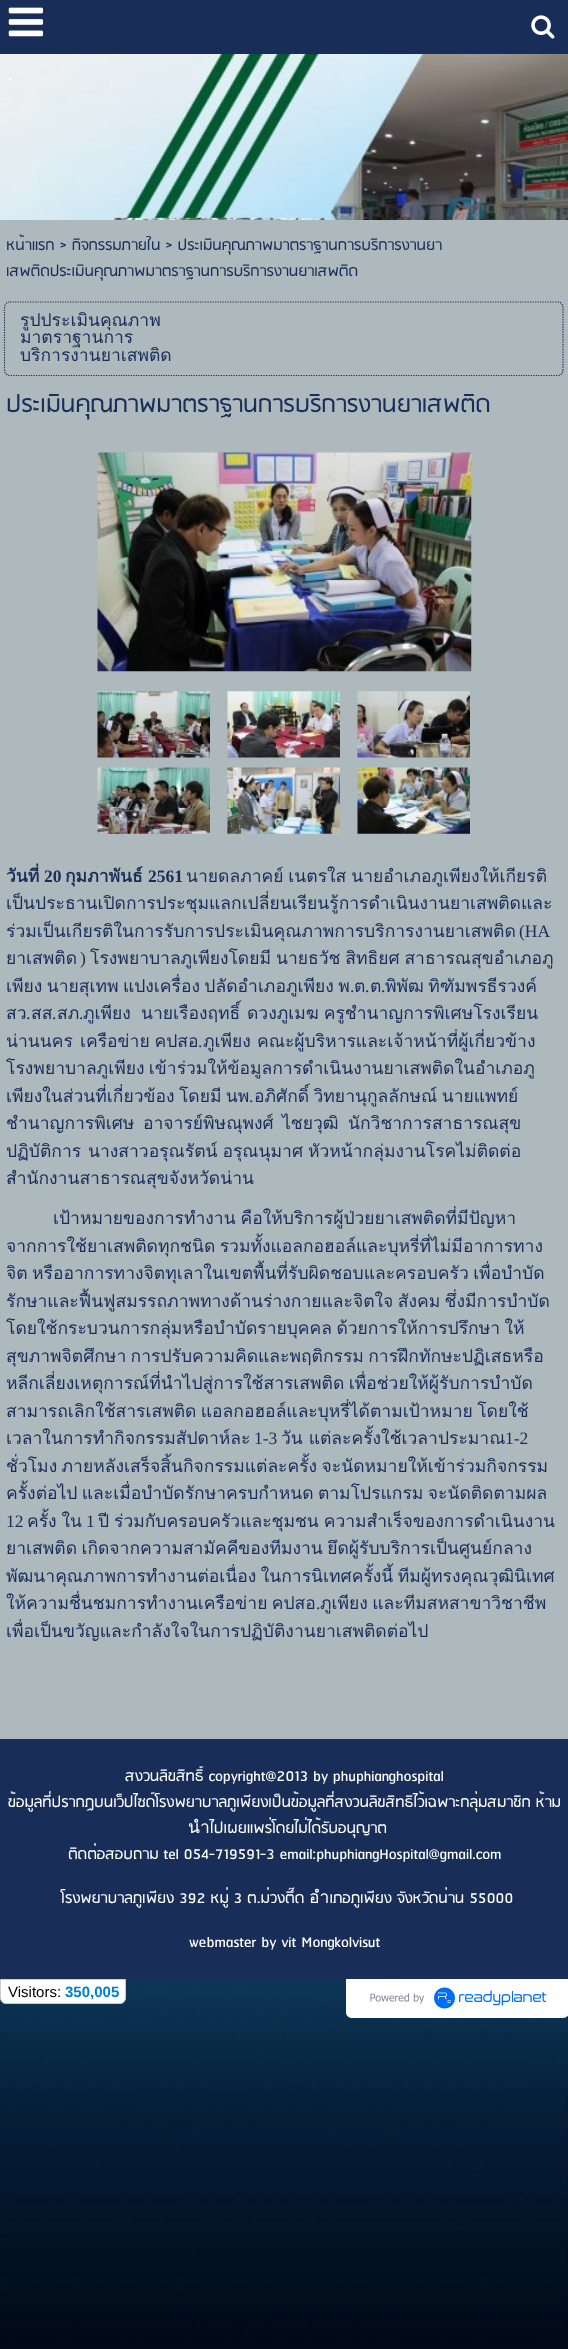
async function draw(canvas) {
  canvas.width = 568
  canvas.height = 2349
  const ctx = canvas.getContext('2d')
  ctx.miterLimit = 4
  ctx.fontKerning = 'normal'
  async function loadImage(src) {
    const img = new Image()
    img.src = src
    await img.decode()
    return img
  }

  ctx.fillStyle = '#fff'
  ctx.fillRect(0, 0, 568, 2349)
  ctx.drawImage(await loadImage('image0.png'), 0, 1979, 568, 370)
  ctx.fillStyle = '#192d59'
  ctx.fillRect(0, 0, 568, 54)
  ctx.drawImage(await loadImage('image1.png'), 8, 7, 36, 30)
  ctx.drawImage(await loadImage('image2.png'), 531, 15, 24, 24)
  ctx.drawImage(await loadImage('image3.png'), 0, 54, 568, 166)
  ctx.font = '20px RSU'
  ctx.fillStyle = '#fff'
  ctx.fillText('.', 8, 80)
  ctx.font = '17.5px RSU'
  ctx.fillText('.', 3, 105)
  ctx.fillStyle = '#aeb9bd'
  ctx.fillRect(0, 220, 568, 1519)
  ctx.fillStyle = '#192d59'
  ctx.fillText('หน้าแรก > กิจกรรมภายใน > ประเมินคุณภาพมาตราฐานการบริการงานยา', 6, 250)
  ctx.fillText('เสพติดประเมินคุณภาพมาตราฐานการบริการงานยาเสพติด', 6, 276)
  ctx.beginPath()
  ctx.moveTo(10, 302)
  ctx.lineTo(557.5, 302)
  ctx.bezierCurveTo(560.5, 302, 563, 304.5, 563, 307.5)
  ctx.lineTo(563, 370)
  ctx.bezierCurveTo(563, 373, 560.5, 375.5, 557.5, 375.5)
  ctx.lineTo(10, 375.5)
  ctx.bezierCurveTo(7, 375.5, 4.5, 373, 4.5, 370)
  ctx.lineTo(4.5, 307.5)
  ctx.bezierCurveTo(4.5, 304.5, 7, 302, 10, 302)
  ctx.closePath()
  ctx.strokeStyle = '#192d59'
  ctx.lineWidth = 1.2
  ctx.setLineDash([1.25, 1.25])
  ctx.stroke()
  ctx.font = '17.5px Loma'
  ctx.fillText('รูปประเมินคุณภาพ', 20, 326)
  ctx.fillText('มาตราฐานการ', 20, 343)
  ctx.fillText('บริการงานยาเสพติด', 20, 361)
  ctx.font = '27.5px RSU'
  ctx.fillText('ประเมินคุณภาพมาตราฐานการบริการงานยาเสพติด', 6, 412)
  ctx.drawImage(await loadImage('image4.png'), 97, 452, 375, 220)
  ctx.drawImage(await loadImage('image5.png'), 97, 691, 113, 67)
  ctx.drawImage(await loadImage('image6.png'), 227, 691, 113, 67)
  ctx.drawImage(await loadImage('image7.png'), 357, 691, 113, 67)
  ctx.drawImage(await loadImage('image8.png'), 97, 767, 113, 67)
  ctx.drawImage(await loadImage('image9.png'), 227, 767, 113, 67)
  ctx.drawImage(await loadImage('image10.png'), 357, 767, 113, 67)
  ctx.font = 'bold 17.5px Loma'
  ctx.fillText('วันที่', 6, 882)
  ctx.font = 'bold 17.5px Liberation Serif'
  ctx.fillText('20', 44, 882)
  ctx.font = 'bold 17.5px Loma'
  ctx.fillText('กุมภาพันธ์', 65, 882)
  ctx.font = 'bold 17.5px Liberation Serif'
  ctx.fillText('2561', 148, 882)
  ctx.wordSpacing = '-1px'
  ctx.font = '17.5px Loma'
  ctx.fillText('นายดลภาคย์ เนตรใส นายอำเภอภูเพียงให้เกียรติ', 186, 882)
  ctx.wordSpacing = '0px'
  ctx.fillText('เป็นประธานเปิดการประชุมแลกเปลี่ยนเรียนรู้การดำเนินงานยาเสพติดและ', 6, 909)
  ctx.fillText('ร่วมเป็นเกียรติในการรับการประเมินคุณภาพการบริการงานยาเสพติด', 6, 937)
  ctx.font = '17.5px Liberation Serif'
  ctx.fillText('(HA', 519, 937)
  ctx.font = '17.5px Loma'
  ctx.fillText('ยาเสพติด', 6, 964)
  ctx.font = '17.5px Liberation Serif'
  ctx.fillText(')', 80, 964)
  ctx.wordSpacing = '-1px'
  ctx.font = '17.5px Loma'
  ctx.fillText('โรงพยาบาลภูเพียงโดยมี นายธวัช สิทธิยศ สาธารณสุขอำเภอภู', 90, 964)
  ctx.wordSpacing = '-1.5px'
  ctx.fillText('เพียง นายสุเทพ แปงเครื่อง ปลัดอำเภอภูเพียง พ', 6, 992)
  ctx.wordSpacing = '0px'
  ctx.font = '17.5px Liberation Serif'
  ctx.fillText('.', 350, 992)
  ctx.font = '17.5px Loma'
  ctx.fillText('ต', 354, 992)
  ctx.font = '17.5px Liberation Serif'
  ctx.fillText('.', 365, 992)
  ctx.font = '17.5px Loma'
  ctx.fillText('ต', 370, 992)
  ctx.font = '17.5px Liberation Serif'
  ctx.fillText('.', 381, 992)
  ctx.wordSpacing = '-1.5px'
  ctx.font = '17.5px Loma'
  ctx.fillText('พิพัฒ ทิฑัมพรธีรวงค์', 385, 992)
  ctx.wordSpacing = '0px'
  ctx.fillText('สว', 6, 1019)
  ctx.font = '17.5px Liberation Serif'
  ctx.fillText('.', 26, 1019)
  ctx.font = '17.5px Loma'
  ctx.fillText('สส', 31, 1019)
  ctx.font = '17.5px Liberation Serif'
  ctx.fillText('.', 52, 1019)
  ctx.font = '17.5px Loma'
  ctx.fillText('สภ', 57, 1019)
  ctx.font = '17.5px Liberation Serif'
  ctx.fillText('.', 79, 1019)
  ctx.font = '17.5px Loma'
  ctx.fillText('ภูเพียง', 83, 1019)
  ctx.fillText('นายเรืองฤทธิ์', 141, 1019)
  ctx.wordSpacing = '-1px'
  ctx.fillText('ดวงภูเมฆ ครูชำนาญการพิเศษโรงเรียน', 247, 1019)
  ctx.wordSpacing = '0px'
  ctx.fillText('น่านนคร', 6, 1047)
  ctx.wordSpacing = '-1px'
  ctx.fillText('เครือข่าย คปสอ', 80, 1047)
  ctx.wordSpacing = '0px'
  ctx.font = '17.5px Liberation Serif'
  ctx.fillText('.', 198, 1047)
  ctx.font = '17.5px Loma'
  ctx.fillText('ภูเพียง', 203, 1047)
  ctx.fillText('คณะผู้บริหารและเจ้าหน้าที่ผู้เกี่ยวข้าง', 257, 1047)
  ctx.wordSpacing = '-1.5px'
  ctx.fillText('โรงพยาบาลภูเพียง เข้าร่วมให้ข้อมูลการดำเนินงานยาเสพติดในอำเภอภู', 6, 1074)
  ctx.fillText('เพียงในส่วนที่เกี่ยวข้อง โดยมี นพ', 6, 1102)
  ctx.wordSpacing = '0px'
  ctx.font = '17.5px Liberation Serif'
  ctx.fillText('.', 249, 1102)
  ctx.wordSpacing = '-1.5px'
  ctx.font = '17.5px Loma'
  ctx.fillText('อภิศักดิ์ วิทยานุกูลลักษณ์ นายแพทย์', 254, 1102)
  ctx.wordSpacing = '0px'
  ctx.fillText('ชำนาญการพิเศษ', 6, 1129)
  ctx.fillText('อาจารย์พิษณุพงศ์', 143, 1129)
  ctx.fillText('ไชยวุฒิ', 282, 1129)
  ctx.fillText('นักวิชาการสาธารณสุข', 348, 1129)
  ctx.fillText('ปฏิบัติการ', 6, 1157)
  ctx.wordSpacing = '-1px'
  ctx.fillText('นางสาวอรุณรัตน์ อรุณนุมาศ หัวหน้ากลุ่มงานโรคไม่ติดต่อ', 88, 1157)
  ctx.wordSpacing = '0px'
  ctx.fillText('สำนักงานสาธารณสุขจังหวัดน่าน', 6, 1184)
  ctx.wordSpacing = '-1px'
  ctx.fillText('เป้าหมายของการทำงาน คือให้บริการผู้ป่วยยาเสพติดที่มีปัญหา', 53, 1224)
  ctx.wordSpacing = '-1.5px'
  ctx.fillText('จากการใช้ยาเสพติดทุกชนิด รวมทั้งแอลกอฮอล์และบุหรี่ที่ไม่มีอาการทาง', 6, 1252)
  ctx.fillText('จิต หรืออาการทางจิตทุเลาในเขตพื้นที่รับผิดชอบและครอบครัว เพื่อบำบัด', 6, 1279)
  ctx.fillText('รักษาและฟื้นฟูสมรรถภาพทางด้านร่างกายและจิตใจ สังคม ชึ่งมีการบำบัด', 6, 1307)
  ctx.fillText('โดยใช้กระบวนการกลุ่มหรือบำบัดรายบุคคล ด้วยการให้การปรึกษา ให้', 6, 1334)
  ctx.fillText('สุขภาพจิตศึกษา การปรับความคิดและพฤติกรรม การฝึกทักษะปฏิเสธหรือ', 6, 1362)
  ctx.fillText('หลีกเลี่ยงเหตุการณ์ที่นำไปสู่การใช้สารเสพติด เพื่อช่วยให้ผู้รับการบำบัด', 6, 1389)
  ctx.fillText('สามารถเลิกใช้สารเสพติด แอลกอฮอล์และบุหรี่ได้ตามเป้าหมาย โดยใช้', 6, 1417)
  ctx.wordSpacing = '0px'
  ctx.fillText('เวลาในการทำกิจกรรมสัปดาห์ละ', 6, 1444)
  ctx.font = '17.5px Liberation Serif'
  ctx.fillText('1-3', 254, 1444)
  ctx.font = '17.5px Loma'
  ctx.fillText('วัน แต่ละครั้งใช้เวลาประมาณ', 281, 1444)
  ctx.font = '17.5px Liberation Serif'
  ctx.fillText('1-2', 505, 1444)
  ctx.wordSpacing = '-1.5px'
  ctx.font = '17.5px Loma'
  ctx.fillText('ชั่วโมง ภายหลังเสร็จสิ้นกิจกรรมแต่ละครั้ง จะนัดหมายให้เข้าร่วมกิจกรรม', 6, 1472)
  ctx.fillText('ครั้งต่อไป และเมื่อบำบัดรักษาครบกำหนด ตามโปรแกรม จะนัดติดตามผล', 6, 1499)
  ctx.wordSpacing = '0px'
  ctx.font = '17.5px Liberation Serif'
  ctx.fillText('12', 6, 1527)
  ctx.wordSpacing = '-1px'
  ctx.font = '17.5px Loma'
  ctx.fillText('ครั้ง ใน', 27, 1527)
  ctx.wordSpacing = '0px'
  ctx.font = '17.5px Liberation Serif'
  ctx.fillText('1', 86, 1527)
  ctx.wordSpacing = '-1px'
  ctx.font = '17.5px Loma'
  ctx.fillText('ปี ร่วมกับครอบครัวและชุมชน ความสำเร็จของการดำเนินงาน', 98, 1527)
  ctx.wordSpacing = '-1.5px'
  ctx.fillText('ยาเสพติด เกิดจากความสามัคคีของทีมงาน ยึดผู้รับบริการเป็นศูนย์กลาง', 6, 1554)
  ctx.fillText('พัฒนาคุณภาพการทำงานต่อเนื่อง ในการนิเทศครั้งนี้ ทีมผู้ทรงคุณวุฒินิเทศ', 6, 1582)
  ctx.fillText('ให้ความชื่นชมการทำงานเครือข่าย คปสอ', 6, 1609)
  ctx.wordSpacing = '0px'
  ctx.font = '17.5px Liberation Serif'
  ctx.fillText('.', 316, 1609)
  ctx.wordSpacing = '-1.5px'
  ctx.font = '17.5px Loma'
  ctx.fillText('ภูเพียง และทีมสหสาขาวิชาชีพ', 320, 1609)
  ctx.wordSpacing = '0px'
  ctx.fillText('เพื่อเป็นขวัญและกำลังใจในการปฏิบัติงานยาเสพติดต่อไป', 6, 1637)
  ctx.fillRect(0, 1739, 568, 240)
  ctx.font = '17.5px RSU'
  ctx.fillStyle = '#fff'
  ctx.fillText('สงวนลิขสิทธิ์ copyright@2013 by phuphianghospital', 125, 1781)
  ctx.fillText('ข้อมูลที่ปรากฏบนเว็ปไซด์โรงพยาบาลภูเพียงเป็นข้อมูลที่สงวนลิขสิทธิไว้เฉพาะกลุ่มสมาชิก ห้าม', 8, 1807)
  ctx.fillText('นำไปเผยแพร่โดยไม่ได้รับอนุญาต', 188, 1833)
  ctx.fillText('ติดต่อสอบถาม tel 054-719591-3 email:phuphiangHospital@gmail.com', 68, 1859)
  ctx.fillText('โรงพยาบาลภูเพียง 392 หมู่ 3 ต.ม่วงตึ๊ด อำเภอภูเพียง จังหวัดน่าน 55000', 61, 1903)
  ctx.fillText('webmaster by vit Mongkolvisut', 189, 1947)
  ctx.beginPath()
  ctx.roundRect(0.5, 1979.5, 125, 24, [0, 0, 5.5, 5.5])
  ctx.fill()
  ctx.strokeStyle = '#ccc'
  ctx.lineWidth = 1
  ctx.setLineDash([])
  ctx.stroke()
  ctx.font = '15px Liberation Sans'
  ctx.fillStyle = '#000'
  ctx.fillText('Visitors:', 8, 1997)
  ctx.font = 'bold 15px Liberation Sans'
  ctx.fillStyle = '#0081c8'
  ctx.fillText('350,005', 65, 1997)
  ctx.fillStyle = '#fff'
  ctx.beginPath()
  ctx.moveTo(346, 1979)
  ctx.lineTo(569, 1979)
  ctx.lineTo(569, 2012)
  ctx.bezierCurveTo(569, 2015.5, 566.5, 2018, 563, 2018)
  ctx.lineTo(352, 2018)
  ctx.bezierCurveTo(348.5, 2018, 346, 2015.5, 346, 2012)
  ctx.closePath()
  ctx.fill()
  ctx.drawImage(await loadImage('image11.png'), 370, 1987, 177, 22)
}

draw(document.querySelector('canvas'))
